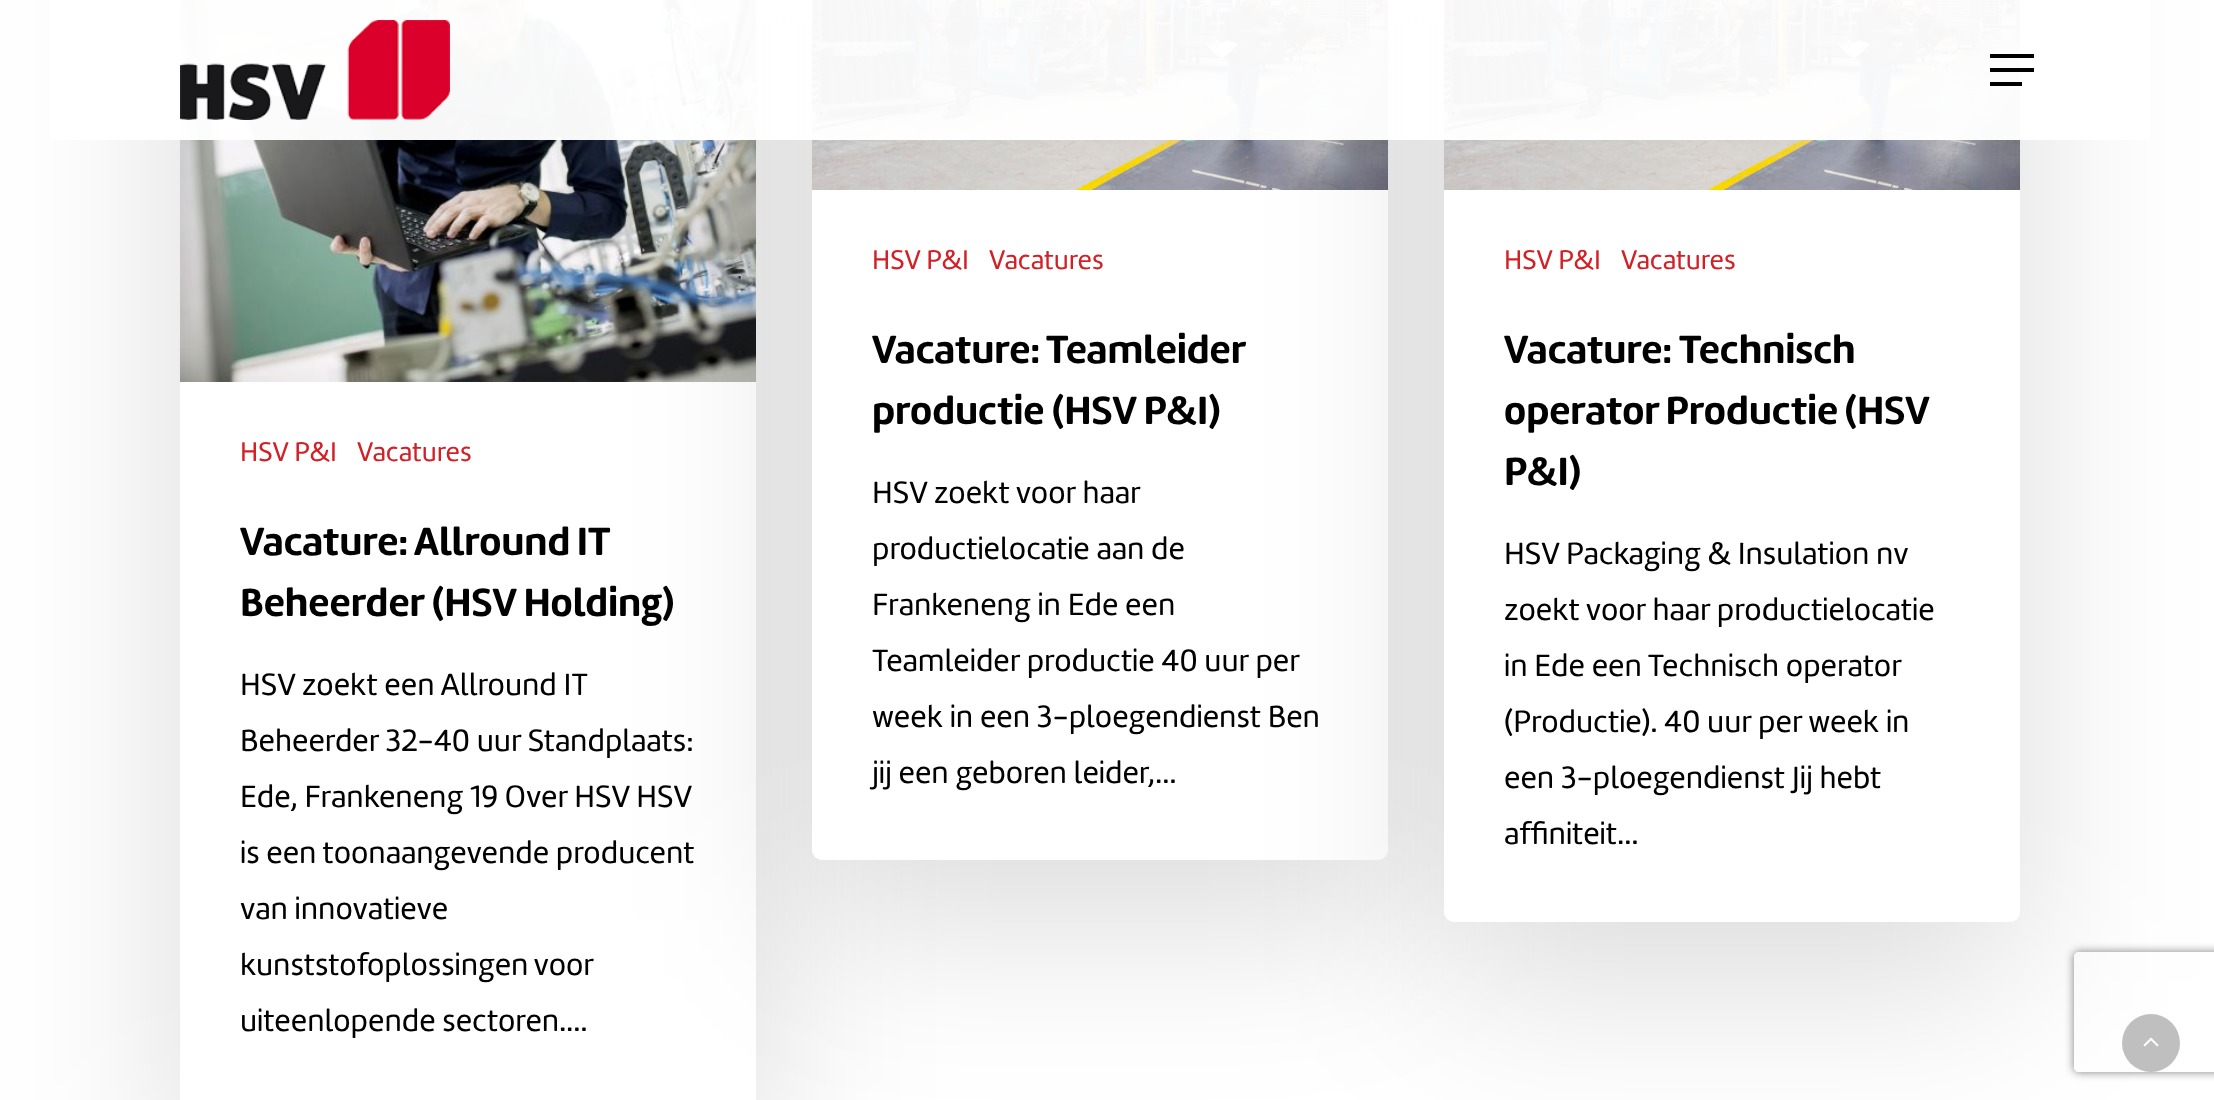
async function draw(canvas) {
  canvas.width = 2214
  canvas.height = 1100
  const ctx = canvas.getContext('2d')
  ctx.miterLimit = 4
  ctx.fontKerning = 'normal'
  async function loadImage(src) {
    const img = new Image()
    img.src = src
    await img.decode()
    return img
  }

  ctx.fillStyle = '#fff'
  ctx.fillRect(0, 0, 2214, 1100)
  ctx.save()
  ctx.beginPath()
  ctx.moveTo(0, 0)
  ctx.lineTo(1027, 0)
  ctx.lineTo(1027, 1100)
  ctx.lineTo(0, 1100)
  ctx.closePath()
  ctx.moveTo(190, -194)
  ctx.lineTo(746, -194)
  ctx.bezierCurveTo(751.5, -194, 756, -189.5, 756, -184)
  ctx.lineTo(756, 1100)
  ctx.bezierCurveTo(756, 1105.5, 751.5, 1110, 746, 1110)
  ctx.lineTo(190, 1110)
  ctx.bezierCurveTo(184.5, 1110, 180, 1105.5, 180, 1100)
  ctx.lineTo(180, -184)
  ctx.bezierCurveTo(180, -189.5, 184.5, -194, 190, -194)
  ctx.closePath()
  ctx.clip('evenodd')
  ctx.fillStyle = '#00000024'
  ctx.filter = 'blur(90px)'
  ctx.beginPath()
  ctx.roundRect(180, -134, 576, 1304, 10)
  ctx.fill()
  ctx.filter = 'none'
  ctx.restore()
  ctx.drawImage(await loadImage('image1.png'), 180, 0, 576, 382)
  ctx.fillStyle = '#00000024'
  ctx.filter = 'blur(90px)'
  ctx.beginPath()
  ctx.roundRect(812, -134, 576, 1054, 10)
  ctx.fill()
  ctx.filter = 'none'
  ctx.drawImage(await loadImage('image2.png'), 812, 0, 576, 190)
  ctx.fillStyle = '#fff'
  ctx.fillRect(812, 190, 576, 108)
  ctx.beginPath()
  ctx.roundRect(812, 298, 576, 562, [0, 0, 10, 10])
  ctx.fill()
  ctx.fillStyle = '#00000024'
  ctx.filter = 'blur(90px)'
  ctx.beginPath()
  ctx.roundRect(1444, -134, 576, 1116, 10)
  ctx.fill()
  ctx.filter = 'none'
  ctx.drawImage(await loadImage('image2.png'), 1444, 0, 576, 190)
  ctx.fillStyle = '#fffffff7'
  ctx.fillRect(50, 0, 2100, 140)
  ctx.drawImage(await loadImage('image0.png'), 180, 20, 270, 100)
  ctx.fillStyle = '#000'
  ctx.fillRect(1990, 54, 44, 4)
  ctx.fillRect(1990, 82, 32, 4)
  ctx.fillRect(1990, 68, 44, 4)
  ctx.font = '28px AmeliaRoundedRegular'
  ctx.fillStyle = '#d12127'
  ctx.fillText('HSV P&I', 240, 461)
  ctx.fillText('Vacatures', 357, 461)
  ctx.wordSpacing = '-1px'
  ctx.font = 'bold 40.75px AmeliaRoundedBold'
  ctx.fillStyle = '#000'
  ctx.fillText('Vacature: Allround IT', 240, 555)
  ctx.wordSpacing = '0px'
  ctx.fillText('Beheerder (HSV Holding)', 240, 616)
  ctx.font = '32px AmeliaRoundedRegular'
  ctx.fillText('HSV zoekt een Allround IT', 240, 695)
  ctx.fillText('Beheerder 32-40 uur Standplaats:', 240, 751)
  ctx.fillText('Ede, Frankeneng 19 Over HSV HSV', 240, 807)
  ctx.fillText('is een toonaangevende producent', 240, 863)
  ctx.fillText('van innovatieve', 240, 919)
  ctx.wordSpacing = '-1px'
  ctx.fillText('kunststofoplossingen voor', 240, 975)
  ctx.wordSpacing = '0px'
  ctx.fillText('uiteenlopende sectoren.…', 240, 1031)
  ctx.font = '28px AmeliaRoundedRegular'
  ctx.fillStyle = '#d12127'
  ctx.fillText('HSV P&I', 872, 269)
  ctx.fillText('Vacatures', 989, 269)
  ctx.wordSpacing = '-1px'
  ctx.font = 'bold 40.75px AmeliaRoundedBold'
  ctx.fillStyle = '#000'
  ctx.fillText('Vacature: Teamleider', 872, 363)
  ctx.wordSpacing = '0px'
  ctx.fillText('productie (HSV P&I)', 872, 424)
  ctx.font = '32px AmeliaRoundedRegular'
  ctx.fillText('HSV zoekt voor haar', 872, 503)
  ctx.fillText('productielocatie aan de', 872, 559)
  ctx.fillText('Frankeneng in Ede een', 872, 615)
  ctx.fillText('Teamleider productie 40 uur per', 872, 671)
  ctx.fillText('week in een 3-ploegendienst Ben', 872, 727)
  ctx.fillText('jij een geboren leider,…', 872, 783)
  ctx.fillStyle = '#fff'
  ctx.fillRect(1444, 190, 576, 108)
  ctx.font = '28px AmeliaRoundedRegular'
  ctx.fillStyle = '#d12127'
  ctx.fillText('HSV P&I', 1504, 269)
  ctx.fillText('Vacatures', 1621, 269)
  ctx.fillStyle = '#fff'
  ctx.beginPath()
  ctx.roundRect(1444, 298, 576, 624, [0, 0, 10, 10])
  ctx.fill()
  ctx.font = 'bold 40.75px AmeliaRoundedBold'
  ctx.fillStyle = '#000'
  ctx.fillText('Vacature: Technisch', 1504, 363)
  ctx.wordSpacing = '-1px'
  ctx.fillText('operator Productie (HSV', 1504, 424)
  ctx.wordSpacing = '0px'
  ctx.fillText('P&I)', 1504, 485)
  ctx.font = '32px AmeliaRoundedRegular'
  ctx.fillText('HSV Packaging & Insulation nv', 1504, 564)
  ctx.fillText('zoekt voor haar productielocatie', 1504, 620)
  ctx.fillText('in Ede een Technisch operator', 1504, 676)
  ctx.fillText('(Productie). 40 uur per week in', 1504, 732)
  ctx.fillText('een 3-ploegendienst Jij hebt', 1504, 788)
  ctx.fillText('affiniteit…', 1504, 844)
  ctx.fillStyle = '#bfbfbf'
  ctx.beginPath()
  ctx.arc(2151, 1043, 29, 0, 2 * Math.PI)
  ctx.fill()
  ctx.drawImage(await loadImage('image3.png'), 2143, 1037, 16, 10)
  ctx.save()
  ctx.beginPath()
  ctx.moveTo(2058, 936)
  ctx.lineTo(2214, 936)
  ctx.lineTo(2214, 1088)
  ctx.lineTo(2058, 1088)
  ctx.closePath()
  ctx.moveTo(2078, 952)
  ctx.lineTo(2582, 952)
  ctx.bezierCurveTo(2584, 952, 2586, 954, 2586, 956)
  ctx.lineTo(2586, 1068)
  ctx.bezierCurveTo(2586, 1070, 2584, 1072, 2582, 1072)
  ctx.lineTo(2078, 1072)
  ctx.bezierCurveTo(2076, 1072, 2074, 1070, 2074, 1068)
  ctx.lineTo(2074, 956)
  ctx.bezierCurveTo(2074, 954, 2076, 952, 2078, 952)
  ctx.closePath()
  ctx.clip('evenodd')
  ctx.fillStyle = '#808080'
  ctx.filter = 'blur(5px)'
  ctx.beginPath()
  ctx.roundRect(2074, 952, 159, 120, 4)
  ctx.fill()
  ctx.filter = 'none'
  ctx.restore()
}

draw(document.querySelector('canvas'))
